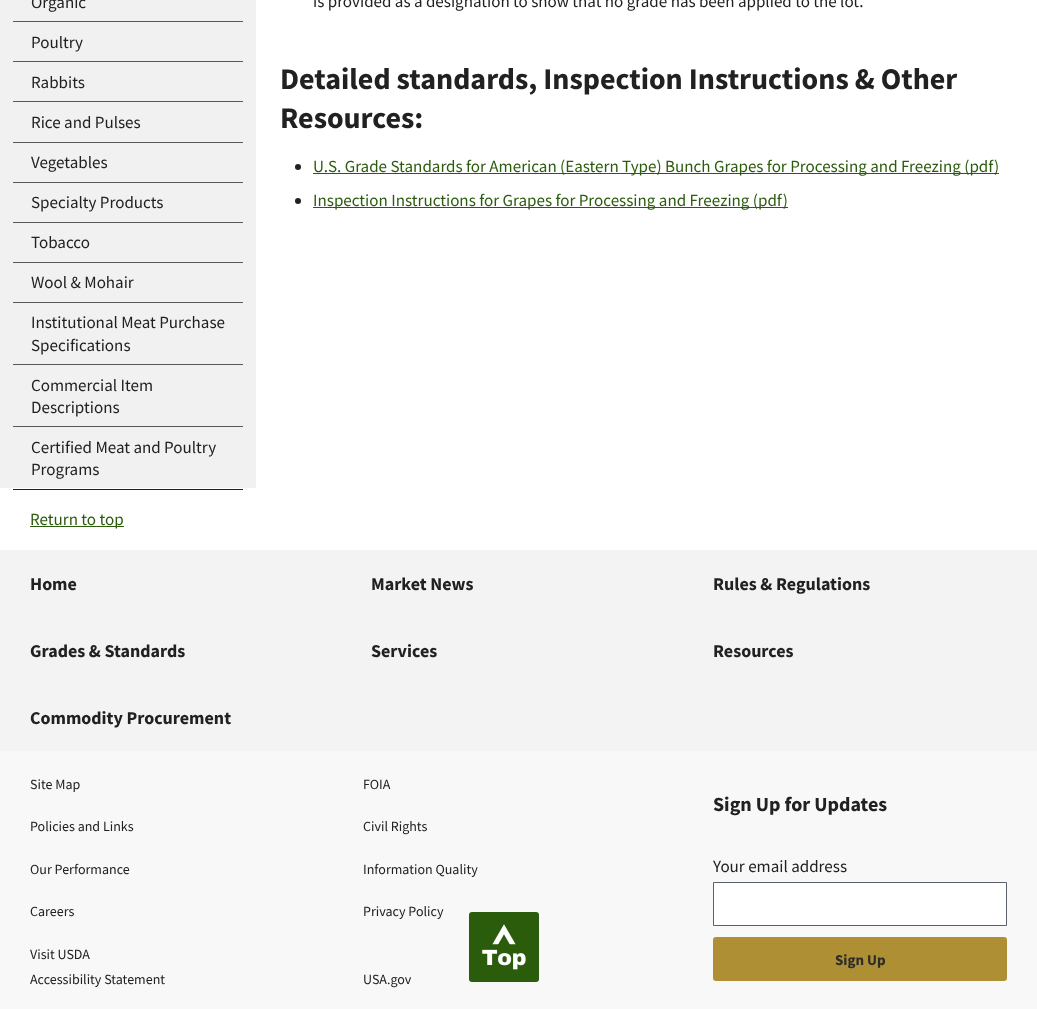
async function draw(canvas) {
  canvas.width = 1037
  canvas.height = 1009
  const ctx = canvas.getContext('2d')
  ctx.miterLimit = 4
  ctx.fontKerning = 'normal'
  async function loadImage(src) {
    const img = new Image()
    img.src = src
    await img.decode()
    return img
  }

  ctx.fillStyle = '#fff'
  ctx.fillRect(0, 0, 1037, 1009)
  ctx.fillStyle = '#f1f1f1'
  ctx.fillRect(0, 0, 256, 488)
  ctx.fillStyle = '#212121'
  ctx.fillRect(13, 489, 230, 1)
  ctx.font = '17px Source Sans Pro'
  ctx.fillText('Organic', 31, 8)
  ctx.fillStyle = '#575757'
  ctx.fillRect(13, 21, 230, 1)
  ctx.fillStyle = '#212121'
  ctx.fillText('Poultry', 31, 48)
  ctx.fillStyle = '#575757'
  ctx.fillRect(13, 61, 230, 1)
  ctx.fillStyle = '#212121'
  ctx.fillText('Rabbits', 31, 88)
  ctx.fillStyle = '#575757'
  ctx.fillRect(13, 101, 230, 1)
  ctx.fillStyle = '#212121'
  ctx.fillText('Rice and Pulses', 31, 128)
  ctx.fillStyle = '#575757'
  ctx.fillRect(13, 142, 230, 1)
  ctx.fillStyle = '#212121'
  ctx.fillText('Vegetables', 31, 168)
  ctx.fillStyle = '#575757'
  ctx.fillRect(13, 182, 230, 1)
  ctx.fillStyle = '#212121'
  ctx.fillText('Specialty Products', 31, 208)
  ctx.fillStyle = '#575757'
  ctx.fillRect(13, 222, 230, 1)
  ctx.fillStyle = '#212121'
  ctx.fillText('Tobacco', 31, 248)
  ctx.fillStyle = '#575757'
  ctx.fillRect(13, 262, 230, 1)
  ctx.fillStyle = '#212121'
  ctx.fillText('Wool & Mohair', 31, 288)
  ctx.fillStyle = '#575757'
  ctx.fillRect(13, 302, 230, 1)
  ctx.fillStyle = '#212121'
  ctx.fillText('Institutional Meat Purchase', 31, 328)
  ctx.fillText('Specifications', 31, 351)
  ctx.fillStyle = '#575757'
  ctx.fillRect(13, 364, 230, 1)
  ctx.fillStyle = '#212121'
  ctx.fillText('Commercial Item', 31, 391)
  ctx.fillText('Descriptions', 31, 413)
  ctx.fillStyle = '#575757'
  ctx.fillRect(13, 426, 230, 1)
  ctx.fillStyle = '#212121'
  ctx.fillText('Certified Meat and Poultry', 31, 453)
  ctx.fillText('Programs', 31, 475)
  ctx.fillText('is provided as a designation to show that no grade has been applied to the lot.', 313, 7)
  ctx.font = 'bold 30px Source Sans Pro'
  ctx.fillText('Detailed standards, Inspection Instructions & Other', 280, 89)
  ctx.fillText('Resources:', 280, 128)
  ctx.beginPath()
  ctx.arc(298, 167, 3, 0, 2 * Math.PI)
  ctx.fill()
  ctx.fillStyle = '#2b5c0d'
  ctx.fillRect(313, 173, 686, 1)
  ctx.font = '17px Source Sans Pro'
  ctx.fillText('U.S. Grade Standards for American (Eastern Type) Bunch Grapes for Processing and Freezing (pdf)', 313, 172)
  ctx.fillStyle = '#212121'
  ctx.beginPath()
  ctx.arc(298, 201, 3, 0, 2 * Math.PI)
  ctx.fill()
  ctx.fillStyle = '#2b5c0d'
  ctx.fillRect(313, 207, 475, 1)
  ctx.fillText('Inspection Instructions for Grapes for Processing and Freezing (pdf)', 313, 206)
  ctx.fillRect(30, 526, 94, 1)
  ctx.fillText('Return to top', 30, 525)
  ctx.fillStyle = '#f3f3f4'
  ctx.fillRect(0, 550, 1037, 201)
  ctx.font = 'bold 18px Source Sans Pro'
  ctx.fillStyle = '#212121'
  ctx.fillText('Home', 30, 590)
  ctx.fillText('Market News', 371, 590)
  ctx.fillText('Rules & Regulations', 713, 590)
  ctx.fillText('Grades & Standards', 30, 657)
  ctx.fillText('Services', 371, 657)
  ctx.fillText('Resources', 713, 657)
  ctx.fillText('Commodity Procurement', 30, 724)
  ctx.fillStyle = '#f8f8f8'
  ctx.fillRect(0, 751, 1037, 258)
  ctx.font = '14px Source Sans Pro'
  ctx.fillStyle = '#212121'
  ctx.fillText('Site Map', 30, 789)
  ctx.fillText('Policies and Links', 30, 831)
  ctx.fillText('Our Performance', 30, 874)
  ctx.fillText('Careers', 30, 916)
  ctx.fillText('Visit USDA', 30, 959)
  ctx.fillText('FOIA', 363, 789)
  ctx.fillText('Civil Rights', 363, 831)
  ctx.fillText('Information Quality', 363, 874)
  ctx.fillText('Privacy Policy', 363, 916)
  ctx.fillText('Accessibility Statement', 30, 984)
  ctx.fillText('USA.gov', 363, 984)
  ctx.font = 'bold 20px Source Sans Pro'
  ctx.fillText('Sign Up for Updates', 713, 811)
  ctx.font = '17px Source Sans Pro'
  ctx.fillText('Your email address', 713, 872)
  ctx.fillStyle = '#fff'
  ctx.beginPath()
  ctx.rect(713.5, 882.5, 293, 43)
  ctx.fill()
  ctx.strokeStyle = '#5b616b'
  ctx.stroke()
  ctx.fillStyle = '#ae8f33'
  ctx.beginPath()
  ctx.roundRect(713, 937, 294, 44, 3)
  ctx.fill()
  ctx.font = 'bold 15px Source Sans Pro'
  ctx.fillStyle = '#2b2b2b'
  ctx.fillText('Sign Up', 835, 965)
  ctx.drawImage(await loadImage('image0.png'), 469, 912, 70, 70)
}

draw(document.querySelector('canvas'))
